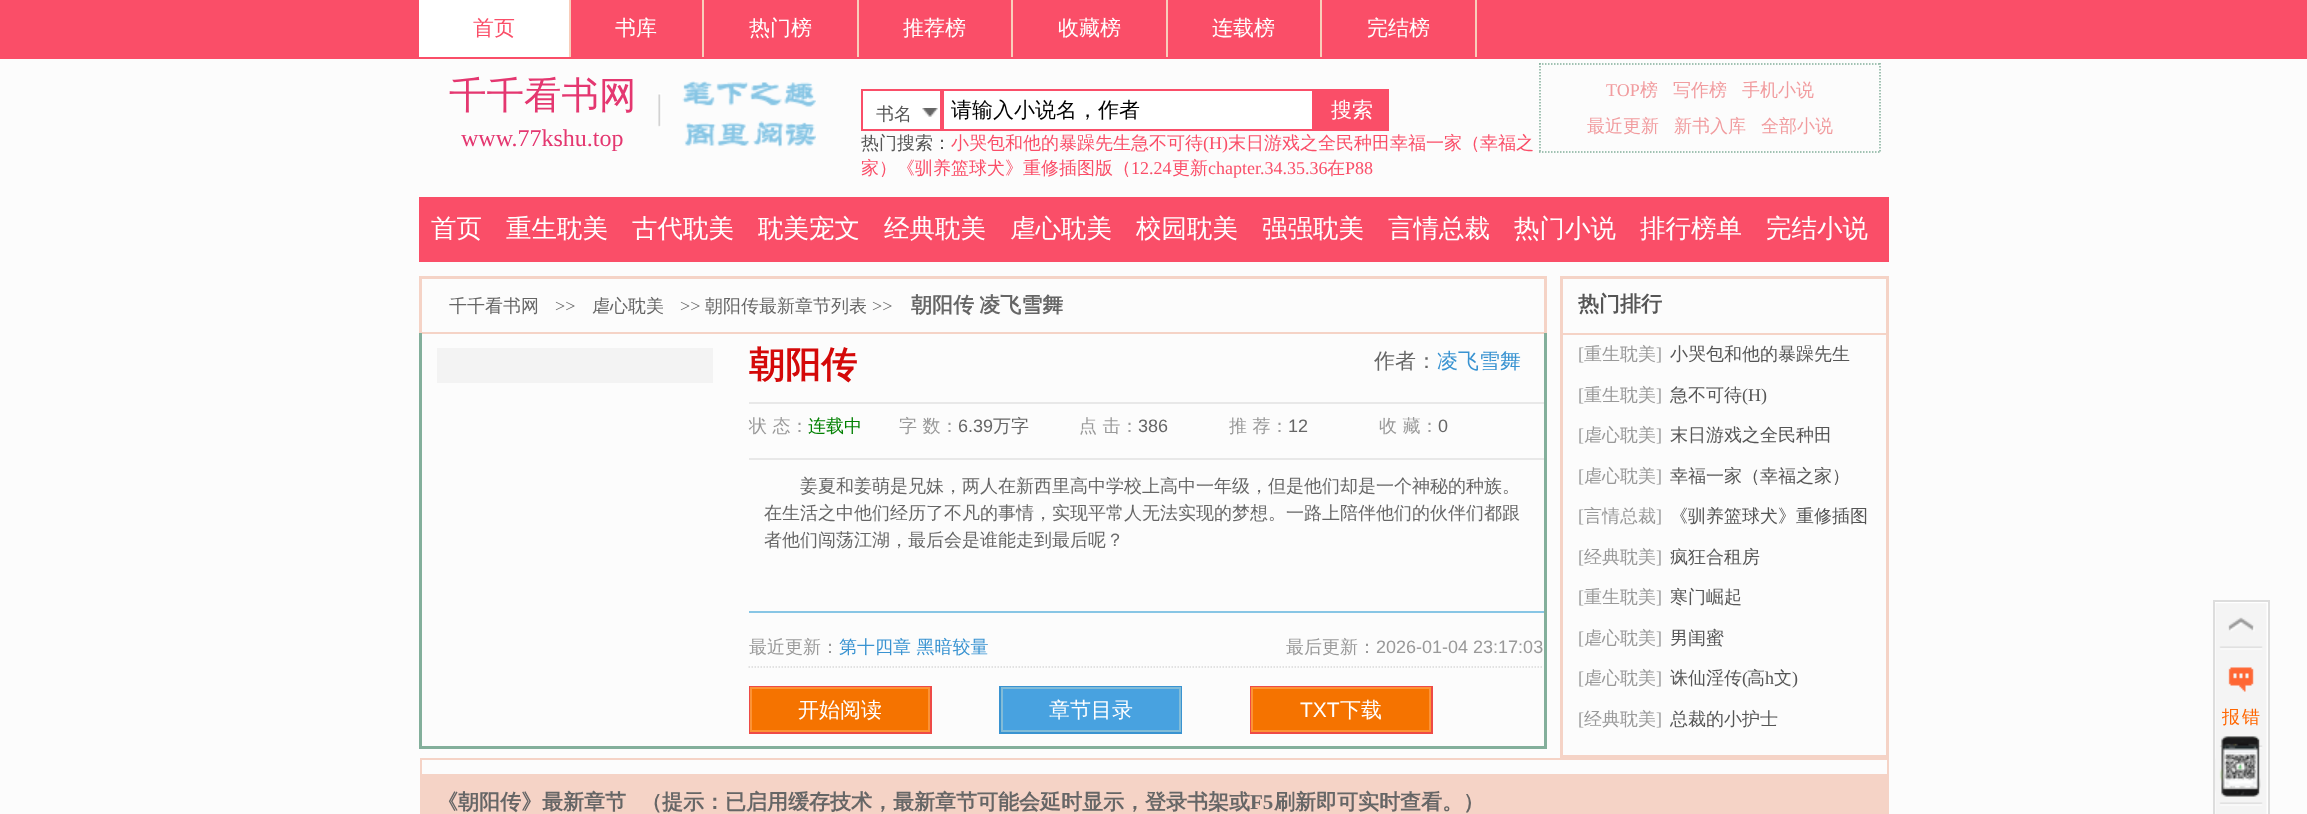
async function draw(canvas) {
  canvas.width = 2307
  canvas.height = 814
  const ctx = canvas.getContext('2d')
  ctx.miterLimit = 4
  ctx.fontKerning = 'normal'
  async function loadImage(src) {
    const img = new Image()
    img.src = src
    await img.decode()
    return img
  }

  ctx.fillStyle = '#fcfcfc'
  ctx.fillRect(0, 0, 2307, 814)
  ctx.fillStyle = '#fa4e68'
  ctx.fillRect(0, 0, 2307, 59)
  ctx.fillStyle = '#fff'
  ctx.fillRect(419, 0, 150, 57)
  ctx.fillStyle = '#f8cdba'
  ctx.fillRect(569, 0, 2, 57)
  ctx.font = '500 21px WenQuanYi Zen Hei'
  ctx.fillStyle = '#fa4e68'
  ctx.fillText('首页', 473, 35)
  ctx.fillStyle = '#f8cdba'
  ctx.fillRect(702, 0, 2, 57)
  ctx.fillStyle = '#fff'
  ctx.fillText('书库', 615, 35)
  ctx.fillStyle = '#f8cdba'
  ctx.fillRect(857, 0, 2, 57)
  ctx.fillStyle = '#fff'
  ctx.fillText('热门榜', 749, 35)
  ctx.fillStyle = '#f8cdba'
  ctx.fillRect(1011, 0, 2, 57)
  ctx.fillStyle = '#fff'
  ctx.fillText('推荐榜', 903, 35)
  ctx.fillStyle = '#f8cdba'
  ctx.fillRect(1166, 0, 2, 57)
  ctx.fillStyle = '#fff'
  ctx.fillText('收藏榜', 1058, 35)
  ctx.fillStyle = '#f8cdba'
  ctx.fillRect(1320, 0, 2, 57)
  ctx.fillStyle = '#fff'
  ctx.fillText('连载榜', 1212, 35)
  ctx.fillStyle = '#f8cdba'
  ctx.fillRect(1475, 0, 2, 57)
  ctx.fillStyle = '#fff'
  ctx.fillText('完结榜', 1367, 35)
  ctx.drawImage(await loadImage('image0.png'), 658, 81, 158, 67)
  ctx.font = '500 37.5px WenQuanYi Zen Hei'
  ctx.fillStyle = '#e43770'
  ctx.fillText('千千看书网', 449, 108)
  ctx.font = '24px Liberation Serif'
  ctx.fillText('www.77kshu.top', 461, 146)
  ctx.fillStyle = '#fff'
  ctx.fillRect(863, 91, 77, 38)
  ctx.drawImage(await loadImage('image1.png'), 922, 108, 16, 9)
  ctx.strokeStyle = '#fa4e68'
  ctx.lineWidth = 2
  ctx.strokeRect(862, 90, 79, 40)
  ctx.font = '500 18px WenQuanYi Zen Hei'
  ctx.fillStyle = '#555'
  ctx.fillText('书名', 876, 120)
  ctx.fillStyle = '#fff'
  ctx.beginPath()
  ctx.rect(943, 90, 370, 40)
  ctx.fill()
  ctx.stroke()
  ctx.font = '500 21px WenQuanYi Zen Hei'
  ctx.fillStyle = '#000'
  ctx.fillText('请输入小说名，作者', 951, 117)
  ctx.fillStyle = '#fa4e68'
  ctx.fillRect(1314, 89, 75, 42)
  ctx.fillStyle = '#fff'
  ctx.fillText('搜索', 1331, 117)
  ctx.font = '500 18px WenQuanYi Zen Hei'
  ctx.fillStyle = '#555'
  ctx.fillText('热门搜索：', 861, 149)
  ctx.fillStyle = '#fa4e68'
  ctx.fillText('小哭包和他的暴躁先生急不可待', 951, 149)
  ctx.font = '18px Liberation Serif'
  ctx.fillText('(H)', 1203, 149)
  ctx.font = '500 18px WenQuanYi Zen Hei'
  ctx.fillText('末日游戏之全民种田幸福一家（幸福之', 1228, 149)
  ctx.fillText('家）《驯养篮球犬》重修插图版（', 861, 174)
  ctx.font = '18px Liberation Serif'
  ctx.fillText('12.24', 1131, 174)
  ctx.font = '500 18px WenQuanYi Zen Hei'
  ctx.fillText('更新', 1172, 174)
  ctx.font = '18px Liberation Serif'
  ctx.fillText('chapter.34.35.36', 1208, 174)
  ctx.font = '500 18px WenQuanYi Zen Hei'
  ctx.fillText('在', 1327, 174)
  ctx.font = '18px Liberation Serif'
  ctx.fillText('P88', 1345, 174)
  ctx.beginPath()
  ctx.moveTo(1539, 64)
  ctx.lineTo(1881, 64)
  ctx.strokeStyle = '#83af9b'
  ctx.lineWidth = 1.5
  ctx.setLineDash([1.5, 1.5])
  ctx.stroke()
  ctx.beginPath()
  ctx.moveTo(1880, 63)
  ctx.lineTo(1880, 153)
  ctx.stroke()
  ctx.beginPath()
  ctx.moveTo(1539, 152)
  ctx.lineTo(1881, 152)
  ctx.stroke()
  ctx.beginPath()
  ctx.moveTo(1540, 63)
  ctx.lineTo(1540, 153)
  ctx.stroke()
  ctx.fillStyle = '#f19c9f'
  ctx.fillText('TOP', 1606, 96)
  ctx.font = '500 18px WenQuanYi Zen Hei'
  ctx.fillText('榜', 1640, 96)
  ctx.fillText('写作榜', 1673, 96)
  ctx.fillText('手机小说', 1742, 96)
  ctx.fillText('最近更新', 1587, 132)
  ctx.fillText('新书入库', 1674, 132)
  ctx.fillText('全部小说', 1761, 132)
  ctx.fillStyle = '#fa4e68'
  ctx.fillRect(419, 197, 1470, 65)
  ctx.font = '500 25.5px WenQuanYi Zen Hei'
  ctx.fillStyle = '#fff'
  ctx.fillText('首页', 431, 237)
  ctx.fillText('重生耽美', 506, 237)
  ctx.fillText('古代耽美', 632, 237)
  ctx.fillText('耽美宠文', 758, 237)
  ctx.fillText('经典耽美', 884, 237)
  ctx.fillText('虐心耽美', 1010, 237)
  ctx.fillText('校园耽美', 1136, 237)
  ctx.fillText('强强耽美', 1262, 237)
  ctx.fillText('言情总裁', 1388, 237)
  ctx.fillText('热门小说', 1514, 237)
  ctx.fillText('排行榜单', 1640, 237)
  ctx.fillText('完结小说', 1766, 237)
  ctx.fillStyle = '#f5d3c6'
  ctx.fillRect(419, 276, 1128, 3)
  ctx.fillRect(1544, 276, 3, 57)
  ctx.fillRect(419, 332, 1128, 2)
  ctx.fillRect(419, 276, 3, 57)
  ctx.font = '500 18px WenQuanYi Zen Hei'
  ctx.fillStyle = '#666'
  ctx.fillText('千千看书网', 449, 312)
  ctx.font = '18px Liberation Serif'
  ctx.fillText('>>', 555, 312)
  ctx.font = '500 18px WenQuanYi Zen Hei'
  ctx.fillText('虐心耽美', 592, 312)
  ctx.font = '18px Liberation Serif'
  ctx.fillText('>>', 680, 312)
  ctx.font = '500 18px WenQuanYi Zen Hei'
  ctx.fillText('朝阳传最新章节列表', 705, 312)
  ctx.font = '18px Liberation Serif'
  ctx.fillText('>>', 872, 312)
  ctx.wordSpacing = '-1px'
  ctx.font = 'bold 21px WenQuanYi Zen Hei'
  ctx.fillText('朝阳传 凌飞雪舞', 911, 312)
  ctx.fillStyle = '#83af9b'
  ctx.fillRect(1544, 333, 3, 416)
  ctx.fillRect(419, 746, 1128, 3)
  ctx.fillRect(419, 333, 3, 416)
  ctx.fillStyle = '#f3f3f3'
  ctx.fillRect(437, 348, 276, 35)
  ctx.fillStyle = '#e8e8e8'
  ctx.fillRect(749, 402, 795, 2)
  ctx.wordSpacing = '0px'
  ctx.font = 'bold 36px WenQuanYi Zen Hei'
  ctx.fillStyle = '#d40909'
  ctx.fillText('朝阳传', 749, 377)
  ctx.font = '500 21px WenQuanYi Zen Hei'
  ctx.fillStyle = '#666'
  ctx.fillText('作者：', 1374, 368)
  ctx.fillStyle = '#3993d1'
  ctx.fillText('凌飞雪舞', 1437, 368)
  ctx.fillStyle = '#e8e8e8'
  ctx.fillRect(749, 458, 795, 2)
  ctx.font = '500 18px WenQuanYi Zen Hei'
  ctx.fillStyle = '#999'
  ctx.fillText('状 态：', 749, 432)
  ctx.fillStyle = '#008000'
  ctx.fillText('连载中', 808, 432)
  ctx.fillStyle = '#999'
  ctx.fillText('字 数：', 899, 432)
  ctx.font = '18px Liberation Sans'
  ctx.fillStyle = '#666'
  ctx.fillText('6.39', 958, 432)
  ctx.font = '500 18px WenQuanYi Zen Hei'
  ctx.fillText('万字', 993, 432)
  ctx.fillStyle = '#999'
  ctx.fillText('点 击：', 1079, 432)
  ctx.font = '18px Liberation Sans'
  ctx.fillStyle = '#666'
  ctx.fillText('386', 1138, 432)
  ctx.font = '500 18px WenQuanYi Zen Hei'
  ctx.fillStyle = '#999'
  ctx.fillText('推 荐：', 1229, 432)
  ctx.font = '18px Liberation Sans'
  ctx.fillStyle = '#666'
  ctx.fillText('12', 1288, 432)
  ctx.font = '500 18px WenQuanYi Zen Hei'
  ctx.fillStyle = '#999'
  ctx.fillText('收 藏：', 1379, 432)
  ctx.font = '18px Liberation Sans'
  ctx.fillStyle = '#666'
  ctx.fillText('0', 1438, 432)
  ctx.fillStyle = '#88c6e5'
  ctx.fillRect(749, 611, 795, 2)
  ctx.font = '500 18px WenQuanYi Zen Hei'
  ctx.fillStyle = '#666'
  ctx.fillText('姜夏和姜萌是兄妹，两人在新西里高中学校上高中一年级，但是他们却是一个神秘的种族。', 800, 492)
  ctx.fillText('在生活之中他们经历了不凡的事情，实现平常人无法实现的梦想。一路上陪伴他们的伙伴们都跟', 764, 519)
  ctx.fillText('者他们闯荡江湖，最后会是谁能走到最后呢？', 764, 546)
  ctx.beginPath()
  ctx.moveTo(748.5, 667)
  ctx.lineTo(1543.5, 667)
  ctx.strokeStyle = '#d9d9d9'
  ctx.stroke()
  ctx.fillStyle = '#999'
  ctx.fillText('最近更新：', 749, 653)
  ctx.fillStyle = '#3993d1'
  ctx.fillText('第十四章 黑暗较量', 839, 653)
  ctx.fillStyle = '#999'
  ctx.fillText('最后更新：', 1286, 653)
  ctx.font = '18px Liberation Sans'
  ctx.fillText('2026-01-04 23:17:03', 1376, 653)
  ctx.fillStyle = '#f57300'
  ctx.fillRect(752, 689, 176, 41)
  ctx.strokeStyle = '#ee4a46'
  ctx.lineWidth = 2
  ctx.setLineDash([])
  ctx.strokeRect(750, 687, 181, 46)
  ctx.strokeStyle = '#fc9336'
  ctx.strokeRect(751, 688, 178, 43)
  ctx.font = '500 21px WenQuanYi Zen Hei'
  ctx.fillStyle = '#fff'
  ctx.fillText('开始阅读', 798, 717)
  ctx.fillStyle = '#48a2e0'
  ctx.fillRect(1003, 689, 176, 41)
  ctx.strokeStyle = '#3993d1'
  ctx.strokeRect(1000, 687, 181, 46)
  ctx.strokeStyle = '#82bcd8'
  ctx.strokeRect(1002, 688, 178, 43)
  ctx.fillStyle = '#fff'
  ctx.fillText('章节目录', 1049, 717)
  ctx.fillStyle = '#f57300'
  ctx.fillRect(1253, 689, 176, 41)
  ctx.strokeStyle = '#ee4a46'
  ctx.strokeRect(1251, 687, 181, 46)
  ctx.strokeStyle = '#fc9336'
  ctx.strokeRect(1252, 688, 178, 43)
  ctx.font = '21px Liberation Sans'
  ctx.fillStyle = '#fff'
  ctx.fillText('TXT', 1300, 717)
  ctx.font = '500 21px WenQuanYi Zen Hei'
  ctx.fillText('下载', 1340, 717)
  ctx.fillStyle = '#f5d3c6'
  ctx.fillRect(1886, 276, 3, 482)
  ctx.fillRect(1560, 755, 329, 3)
  ctx.fillRect(1560, 276, 3, 482)
  ctx.fillRect(1563, 276, 323, 3)
  ctx.fillRect(1563, 333, 323, 2)
  ctx.font = 'bold 21px WenQuanYi Zen Hei'
  ctx.fillStyle = '#555'
  ctx.fillText('热门排行', 1578, 311)
  ctx.font = '18px Liberation Serif'
  ctx.fillStyle = '#999'
  ctx.fillText('[', 1578, 360)
  ctx.font = '500 18px WenQuanYi Zen Hei'
  ctx.fillText('重生耽美', 1584, 360)
  ctx.font = '18px Liberation Serif'
  ctx.fillText(']', 1656, 360)
  ctx.font = '500 18px WenQuanYi Zen Hei'
  ctx.fillStyle = '#555'
  ctx.fillText('小哭包和他的暴躁先生', 1670, 360)
  ctx.font = '18px Liberation Serif'
  ctx.fillStyle = '#999'
  ctx.fillText('[', 1578, 401)
  ctx.font = '500 18px WenQuanYi Zen Hei'
  ctx.fillText('重生耽美', 1584, 401)
  ctx.font = '18px Liberation Serif'
  ctx.fillText(']', 1656, 401)
  ctx.font = '500 18px WenQuanYi Zen Hei'
  ctx.fillStyle = '#555'
  ctx.fillText('急不可待', 1670, 401)
  ctx.font = '18px Liberation Serif'
  ctx.fillText('(H)', 1742, 401)
  ctx.fillStyle = '#999'
  ctx.fillText('[', 1578, 441)
  ctx.font = '500 18px WenQuanYi Zen Hei'
  ctx.fillText('虐心耽美', 1584, 441)
  ctx.font = '18px Liberation Serif'
  ctx.fillText(']', 1656, 441)
  ctx.font = '500 18px WenQuanYi Zen Hei'
  ctx.fillStyle = '#555'
  ctx.fillText('末日游戏之全民种田', 1670, 441)
  ctx.font = '18px Liberation Serif'
  ctx.fillStyle = '#999'
  ctx.fillText('[', 1578, 482)
  ctx.font = '500 18px WenQuanYi Zen Hei'
  ctx.fillText('虐心耽美', 1584, 482)
  ctx.font = '18px Liberation Serif'
  ctx.fillText(']', 1656, 482)
  ctx.font = '500 18px WenQuanYi Zen Hei'
  ctx.fillStyle = '#555'
  ctx.fillText('幸福一家（幸福之家）', 1670, 482)
  ctx.font = '18px Liberation Serif'
  ctx.fillStyle = '#999'
  ctx.fillText('[', 1578, 522)
  ctx.font = '500 18px WenQuanYi Zen Hei'
  ctx.fillText('言情总裁', 1584, 522)
  ctx.font = '18px Liberation Serif'
  ctx.fillText(']', 1656, 522)
  ctx.font = '500 18px WenQuanYi Zen Hei'
  ctx.fillStyle = '#555'
  ctx.fillText('《驯养篮球犬》重修插图', 1670, 522)
  ctx.font = '18px Liberation Serif'
  ctx.fillStyle = '#999'
  ctx.fillText('[', 1578, 563)
  ctx.font = '500 18px WenQuanYi Zen Hei'
  ctx.fillText('经典耽美', 1584, 563)
  ctx.font = '18px Liberation Serif'
  ctx.fillText(']', 1656, 563)
  ctx.font = '500 18px WenQuanYi Zen Hei'
  ctx.fillStyle = '#555'
  ctx.fillText('疯狂合租房', 1670, 563)
  ctx.font = '18px Liberation Serif'
  ctx.fillStyle = '#999'
  ctx.fillText('[', 1578, 603)
  ctx.font = '500 18px WenQuanYi Zen Hei'
  ctx.fillText('重生耽美', 1584, 603)
  ctx.font = '18px Liberation Serif'
  ctx.fillText(']', 1656, 603)
  ctx.font = '500 18px WenQuanYi Zen Hei'
  ctx.fillStyle = '#555'
  ctx.fillText('寒门崛起', 1670, 603)
  ctx.font = '18px Liberation Serif'
  ctx.fillStyle = '#999'
  ctx.fillText('[', 1578, 644)
  ctx.font = '500 18px WenQuanYi Zen Hei'
  ctx.fillText('虐心耽美', 1584, 644)
  ctx.font = '18px Liberation Serif'
  ctx.fillText(']', 1656, 644)
  ctx.font = '500 18px WenQuanYi Zen Hei'
  ctx.fillStyle = '#555'
  ctx.fillText('男闺蜜', 1670, 644)
  ctx.font = '18px Liberation Serif'
  ctx.fillStyle = '#999'
  ctx.fillText('[', 1578, 684)
  ctx.font = '500 18px WenQuanYi Zen Hei'
  ctx.fillText('虐心耽美', 1584, 684)
  ctx.font = '18px Liberation Serif'
  ctx.fillText(']', 1656, 684)
  ctx.font = '500 18px WenQuanYi Zen Hei'
  ctx.fillStyle = '#555'
  ctx.fillText('诛仙淫传', 1670, 684)
  ctx.font = '18px Liberation Serif'
  ctx.fillText('(', 1742, 684)
  ctx.font = '500 18px WenQuanYi Zen Hei'
  ctx.fillText('高', 1747, 684)
  ctx.font = '18px Liberation Serif'
  ctx.fillText('h', 1765, 684)
  ctx.font = '500 18px WenQuanYi Zen Hei'
  ctx.fillText('文', 1774, 684)
  ctx.font = '18px Liberation Serif'
  ctx.fillText(')', 1792, 684)
  ctx.fillStyle = '#999'
  ctx.fillText('[', 1578, 725)
  ctx.font = '500 18px WenQuanYi Zen Hei'
  ctx.fillText('经典耽美', 1584, 725)
  ctx.font = '18px Liberation Serif'
  ctx.fillText(']', 1656, 725)
  ctx.font = '500 18px WenQuanYi Zen Hei'
  ctx.fillStyle = '#555'
  ctx.fillText('总裁的小护士', 1670, 725)
  ctx.fillStyle = '#fff'
  ctx.fillRect(2215, 602, 53, 212)
  ctx.drawImage(await loadImage('image2.png'), 2215, 603, 52, 211)
  ctx.strokeStyle = '#ddd'
  ctx.strokeRect(2214, 601, 55, 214)
  ctx.letterSpacing = '2px'
  ctx.fillStyle = '#f60'
  ctx.fillText('报错', 2222, 723)
  ctx.strokeStyle = '#f5d3c6'
  ctx.strokeRect(421, 759, 1467, 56)
  ctx.fillStyle = '#f5d3c6'
  ctx.fillRect(424, 777, 1463, 37)
  ctx.fillRect(422, 774, 1465, 3)
  ctx.fillRect(422, 774, 2, 40)
  ctx.letterSpacing = '0px'
  ctx.font = 'bold 21px WenQuanYi Zen Hei'
  ctx.fillStyle = '#666'
  ctx.fillText('《朝阳传》最新章节', 437, 809)
  ctx.fillText('（提示：已启用缓存技术，最新章节可能会延时显示，登录书架或', 641, 809)
  ctx.font = 'bold 21px Liberation Serif'
  ctx.fillText('F5', 1250, 809)
  ctx.font = 'bold 21px WenQuanYi Zen Hei'
  ctx.fillText('刷新即可实时查看。）', 1274, 809)
}

draw(document.querySelector('canvas'))
